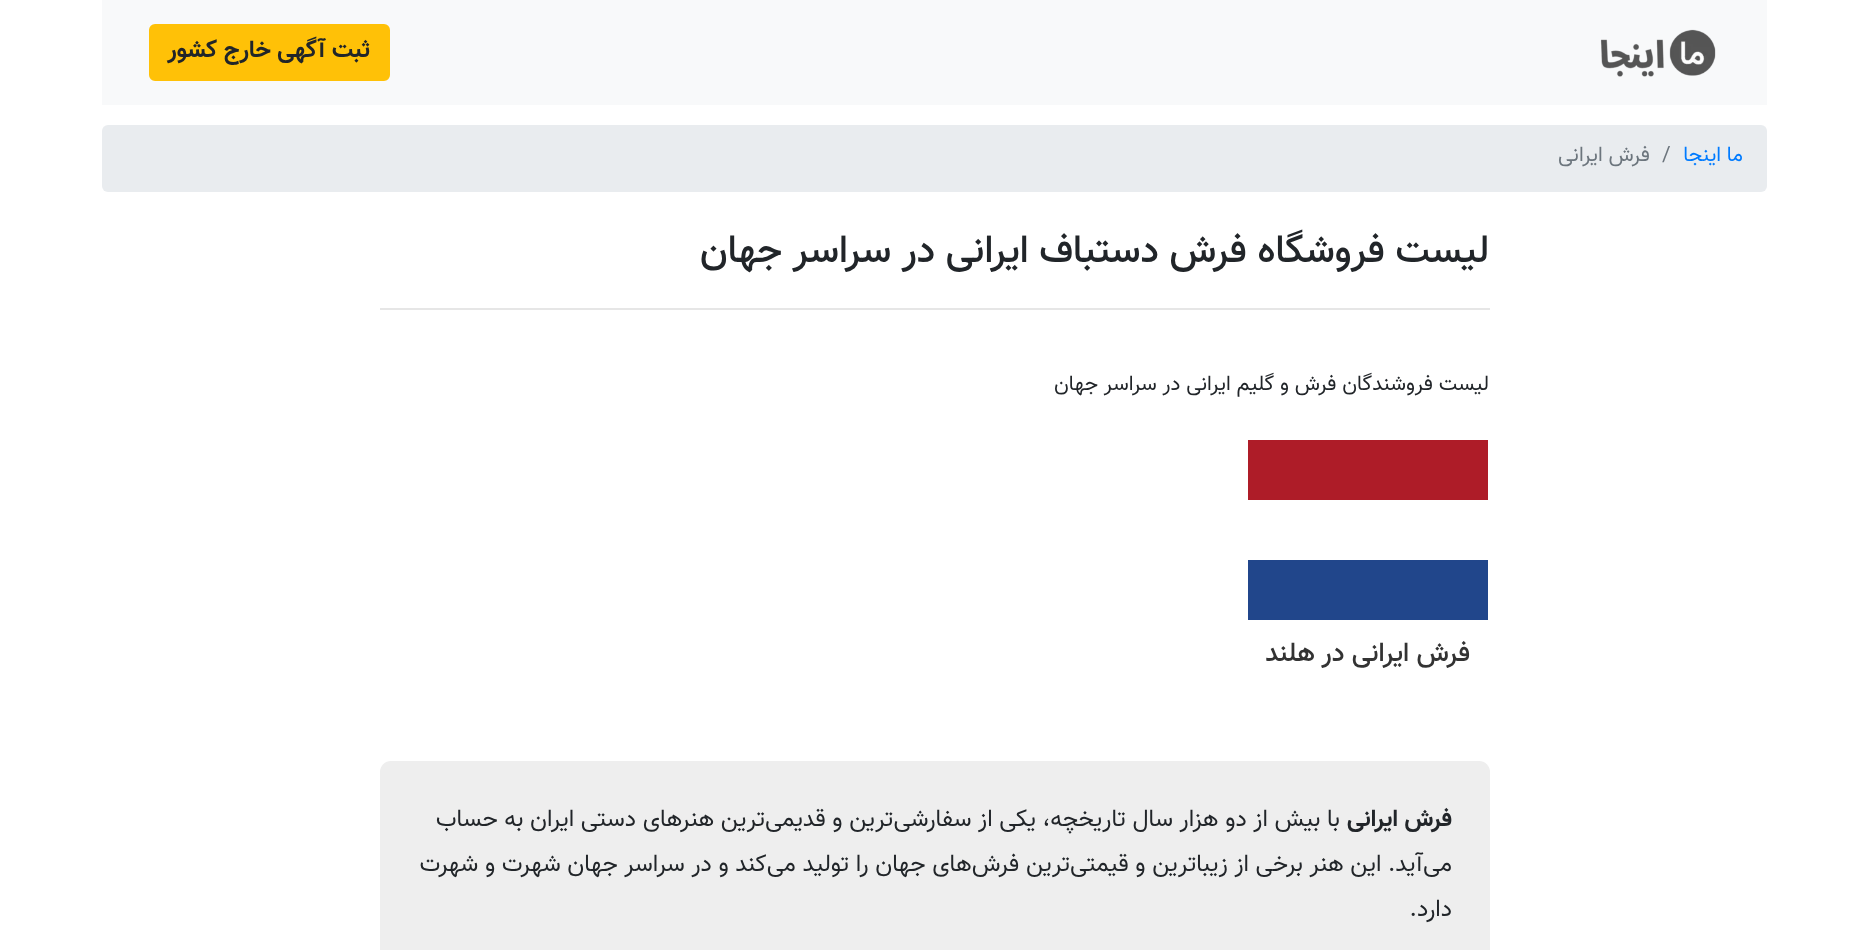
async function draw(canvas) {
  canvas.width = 1868
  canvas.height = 950
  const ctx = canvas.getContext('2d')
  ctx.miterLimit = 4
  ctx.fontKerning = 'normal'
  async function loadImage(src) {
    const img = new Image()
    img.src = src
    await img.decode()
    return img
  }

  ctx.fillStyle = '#fff'
  ctx.fillRect(0, 0, 1868, 950)
  ctx.fillStyle = '#f8f9fa'
  ctx.fillRect(102, 0, 1665, 105)
  ctx.drawImage(await loadImage('image0.png'), 1600, 29, 116, 48)
  ctx.fillStyle = '#ffc107'
  ctx.beginPath()
  ctx.roundRect(150, 25, 239, 55, 5)
  ctx.fill()
  ctx.strokeStyle = '#ffc107'
  ctx.lineWidth = 2
  ctx.stroke()
  ctx.direction = 'rtl'
  ctx.font = 'bold 24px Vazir'
  ctx.fillStyle = '#212529'
  ctx.fillText('ثبت آگهی خارج کشور', 370, 57)
  ctx.fillStyle = '#e9ecef'
  ctx.beginPath()
  ctx.roundRect(102, 125, 1665, 67, 6)
  ctx.fill()
  ctx.font = '21px Vazir'
  ctx.fillStyle = '#007bff'
  ctx.fillText('ما اینجا', 1743, 161)
  ctx.direction = 'ltr'
  ctx.fillStyle = '#6c757d'
  ctx.fillText('/', 1662, 161)
  ctx.direction = 'rtl'
  ctx.fillText('فرش ایرانی', 1650, 161)
  ctx.font = '500 39px Vazir'
  ctx.fillStyle = '#212529'
  ctx.fillText('لیست فروشگاه فرش دستباف ایرانی در سراسر جهان', 1489, 262)
  ctx.fillStyle = '#e6e6e6'
  ctx.fillRect(380, 308, 1110, 2)
  ctx.font = '21px Vazir'
  ctx.fillStyle = '#212529'
  ctx.fillText('لیست فروشندگان فرش و گلیم ایرانی در سراسر جهان', 1489, 390)
  ctx.fillStyle = '#21468b'
  ctx.fillRect(1248, 560, 240, 60)
  ctx.fillStyle = '#ae1c28'
  ctx.fillRect(1248, 440, 240, 60)
  ctx.font = '500 27px Vazir'
  ctx.fillStyle = '#333'
  ctx.fillText('فرش ایرانی در', 1470, 661)
  ctx.fillText('هلند', 1315, 661)
  ctx.fillStyle = '#eee'
  ctx.beginPath()
  ctx.roundRect(380, 761, 1110, 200, 11)
  ctx.fill()
  ctx.font = 'bold 24px Vazir'
  ctx.fillStyle = '#212529'
  ctx.fillText('فرش ایرانی', 1452, 826)
  ctx.font = '24px Vazir'
  ctx.fillText('با بیش از دو هزار سال تاریخچه، یکی از سفارشی‌ترین و قدیمی‌ترین هنرهای دستی ایران به حساب', 1340, 826)
  ctx.fillText('می‌آید. این هنر برخی از زیباترین و قیمتی‌ترین فرش‌های جهان را تولید می‌کند و در سراسر جهان شهرت و شهرت', 1452, 871)
  ctx.fillText('دارد.', 1452, 916)
}

draw(document.querySelector('canvas'))
